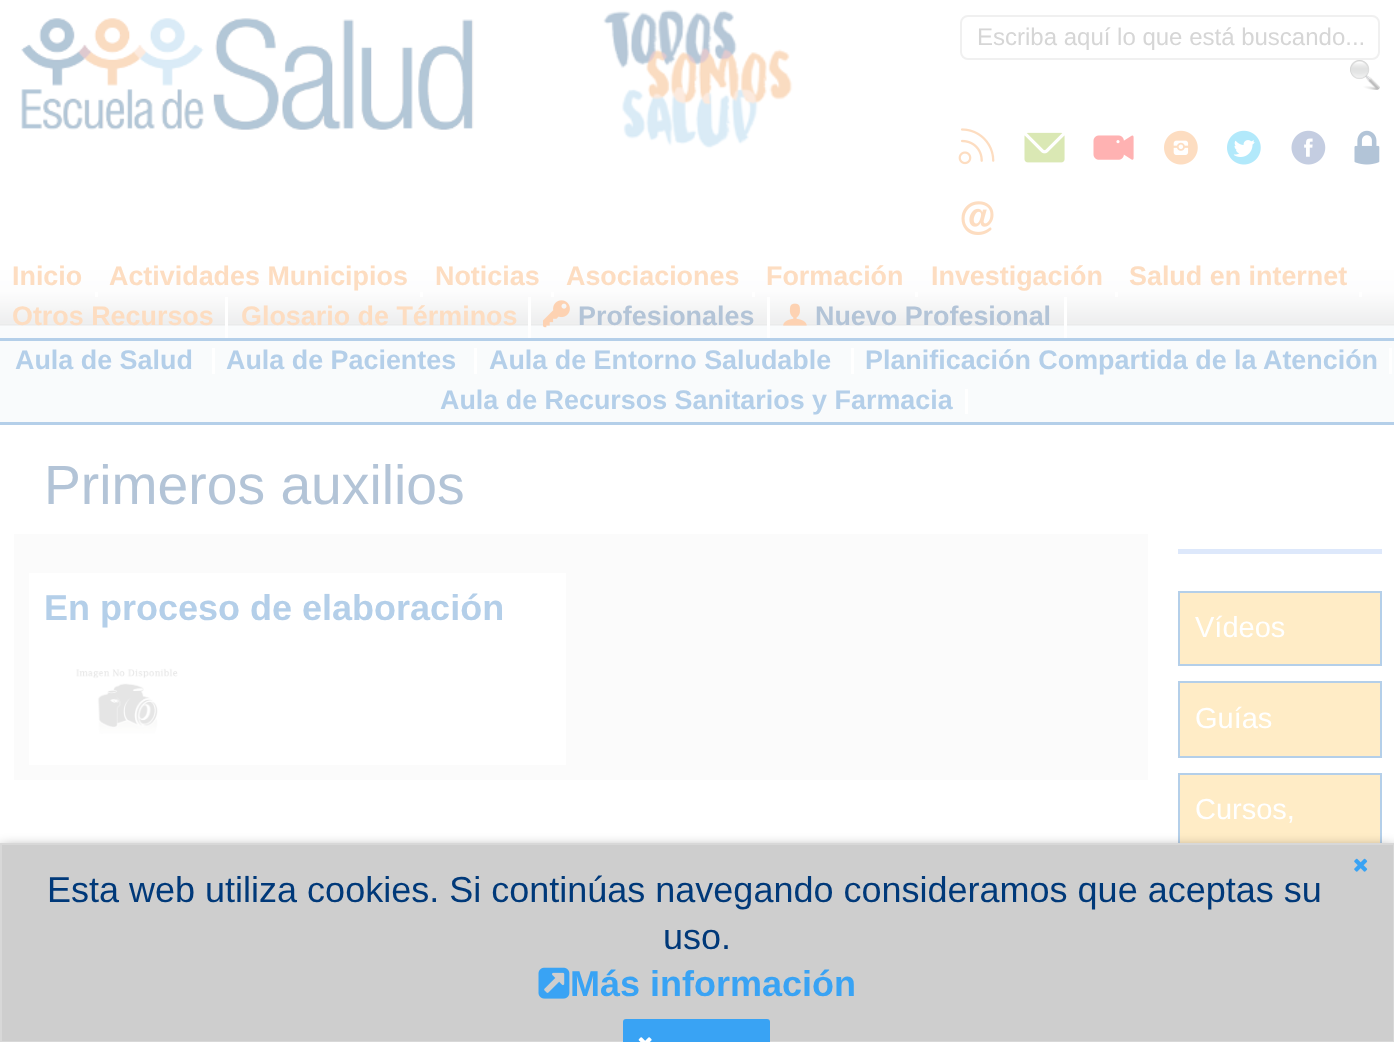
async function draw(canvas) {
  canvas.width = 1394
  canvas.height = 1042
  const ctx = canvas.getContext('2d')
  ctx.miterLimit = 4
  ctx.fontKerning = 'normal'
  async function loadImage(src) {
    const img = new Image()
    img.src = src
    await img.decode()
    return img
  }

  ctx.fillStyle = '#fff'
  ctx.fillRect(0, 0, 1394, 1042)
  ctx.drawImage(await loadImage('image0.png'), 21, 18, 453, 112)
  ctx.drawImage(await loadImage('image1.png'), 603, 9, 190, 140)
  ctx.beginPath()
  ctx.roundRect(961, 16, 418, 43, 7)
  ctx.strokeStyle = '#f0f0f0'
  ctx.lineWidth = 2
  ctx.stroke()
  ctx.font = '24px Liberation Sans'
  ctx.fillStyle = '#d6d6d6'
  ctx.fillText('Escriba aquí lo que está buscando...', 977, 45)
  ctx.drawImage(await loadImage('image2.png'), 1350, 60, 30, 30)
  ctx.drawImage(await loadImage('image3.png'), 958, 128, 37, 37)
  ctx.drawImage(await loadImage('image4.png'), 1024, 132, 41, 31)
  ctx.drawImage(await loadImage('image5.png'), 1093, 135, 41, 25)
  ctx.drawImage(await loadImage('image6.png'), 1164, 130, 34, 35)
  ctx.drawImage(await loadImage('image7.png'), 1227, 130, 34, 35)
  ctx.drawImage(await loadImage('image8.png'), 1291, 130, 35, 35)
  ctx.drawImage(await loadImage('image9.png'), 961, 201, 33, 34)
  ctx.drawImage(await loadImage('image10.png'), 1354, 130, 26, 35)
  ctx.fillStyle = '#f9fbfc'
  ctx.fillRect(0, 322, 1394, 16)
  ctx.drawImage(await loadImage('image11.png'), 0, 257, 1394, 69)
  ctx.fillStyle = '#fff'
  ctx.fillRect(95, 292, 3, 5)
  ctx.font = 'bold 26.9px Liberation Sans'
  ctx.fillStyle = '#fdddc1'
  ctx.fillText('Inicio', 12, 285)
  ctx.fillStyle = '#fff'
  ctx.fillRect(420, 292, 3, 5)
  ctx.fillStyle = '#fdddc1'
  ctx.fillText('Actividades Municipios', 109, 285)
  ctx.fillStyle = '#fff'
  ctx.fillRect(551, 292, 3, 5)
  ctx.fillStyle = '#fdddc1'
  ctx.fillText('Noticias', 435, 285)
  ctx.fillStyle = '#fff'
  ctx.fillRect(752, 292, 3, 5)
  ctx.fillStyle = '#fdddc1'
  ctx.fillText('Asociaciones', 566, 285)
  ctx.fillStyle = '#fff'
  ctx.fillRect(915, 292, 3, 5)
  ctx.fillStyle = '#fdddc1'
  ctx.fillText('Formación', 766, 285)
  ctx.fillStyle = '#fff'
  ctx.fillRect(1115, 292, 3, 5)
  ctx.fillStyle = '#fdddc1'
  ctx.fillText('Investigación', 931, 285)
  ctx.fillStyle = '#fff'
  ctx.fillRect(1359, 292, 3, 5)
  ctx.fillStyle = '#fdddc1'
  ctx.fillText('Salud en internet', 1129, 285)
  ctx.fillStyle = '#fff'
  ctx.fillRect(225, 297, 3, 41)
  ctx.fillStyle = '#fdddc1'
  ctx.fillText('Otros Recursos', 12, 325)
  ctx.fillStyle = '#fff'
  ctx.fillRect(528, 297, 3, 41)
  ctx.fillStyle = '#fdddc1'
  ctx.fillText('Glosario de Términos', 241, 325)
  ctx.fillStyle = '#fff'
  ctx.fillRect(767, 297, 3, 41)
  ctx.drawImage(await loadImage('image12.png'), 543, 300, 27, 28)
  ctx.fillStyle = '#b3c4d7'
  ctx.fillText('Profesionales', 578, 325)
  ctx.fillStyle = '#fff'
  ctx.fillRect(1064, 297, 3, 41)
  ctx.drawImage(await loadImage('image13.png'), 783, 303, 24, 23)
  ctx.fillStyle = '#b3c4d7'
  ctx.fillText('Nuevo Profesional', 815, 325)
  ctx.fillStyle = '#f9fbfc'
  ctx.fillRect(0, 341, 1394, 81)
  ctx.fillStyle = '#b4cfe9'
  ctx.fillRect(0, 338, 1394, 3)
  ctx.fillRect(0, 422, 1394, 3)
  ctx.fillText('Aula de Salud', 15, 369)
  ctx.fillStyle = '#fff'
  ctx.fillRect(212, 348, 3, 26)
  ctx.fillStyle = '#b4cfe9'
  ctx.fillText('Aula de Pacientes', 226, 369)
  ctx.fillStyle = '#fff'
  ctx.fillRect(474, 348, 3, 26)
  ctx.fillStyle = '#b4cfe9'
  ctx.fillText('Aula de Entorno Saludable', 489, 369)
  ctx.fillStyle = '#fff'
  ctx.fillRect(851, 348, 3, 26)
  ctx.fillStyle = '#b4cfe9'
  ctx.fillText('Planificación Compartida de la Atención', 865, 369)
  ctx.fillStyle = '#fff'
  ctx.fillRect(1389, 348, 3, 26)
  ctx.fillStyle = '#b4cfe9'
  ctx.fillText('Aula de Recursos Sanitarios y Farmacia', 440, 409)
  ctx.fillStyle = '#fff'
  ctx.fillRect(965, 389, 3, 25)
  ctx.font = '55.25px Liberation Sans'
  ctx.fillStyle = '#b3c4d7'
  ctx.fillText('Primeros auxilios', 44, 504)
  ctx.fillStyle = '#fbfbfb'
  ctx.fillRect(14, 534, 1134, 246)
  ctx.fillStyle = '#fff'
  ctx.fillRect(29, 573, 537, 192)
  ctx.font = 'bold 36px Liberation Sans'
  ctx.fillStyle = '#b4cfe9'
  ctx.fillText('En proceso de elaboración', 44, 620)
  ctx.drawImage(await loadImage('image14.png'), 76, 668, 102, 66)
  ctx.fillStyle = '#dde8fb'
  ctx.fillRect(1178, 549, 204, 5)
  ctx.fillStyle = '#ffecc6'
  ctx.beginPath()
  ctx.rect(1179, 592, 202, 73)
  ctx.fill()
  ctx.strokeStyle = '#b4cfe9'
  ctx.stroke()
  ctx.font = '29px Liberation Sans'
  ctx.fillStyle = '#fff'
  ctx.fillText('Vídeos', 1195, 637)
  ctx.fillStyle = '#ffecc6'
  ctx.beginPath()
  ctx.rect(1179, 682, 202, 75)
  ctx.fill()
  ctx.stroke()
  ctx.fillStyle = '#fff'
  ctx.fillText('Guías', 1195, 728)
  ctx.fillStyle = '#ffecc6'
  ctx.fillRect(1180, 775, 200, 68)
  ctx.strokeRect(1179, 774, 202, 118)
  ctx.fillStyle = '#fff'
  ctx.fillText('Cursos,', 1195, 819)
  ctx.fillStyle = '#000000cc'
  ctx.filter = 'blur(7.5px)'
  ctx.beginPath()
  ctx.rect(0, 851, 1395, 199)
  ctx.fill()
  ctx.filter = 'none'
  ctx.fillStyle = '#cecece'
  ctx.beginPath()
  ctx.rect(1, 844, 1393, 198)
  ctx.fill()
  ctx.strokeStyle = '#d8d8d8'
  ctx.stroke()
  ctx.drawImage(await loadImage('image15.png'), 1354, 858, 14, 14)
  ctx.font = '36px Liberation Sans'
  ctx.fillStyle = '#003979'
  ctx.fillText('Esta web utiliza cookies. Si continúas navegando consideramos que aceptas su', 47, 902)
  ctx.fillText('uso.', 663, 949)
  ctx.drawImage(await loadImage('image16.png'), 538, 967, 32, 32)
  ctx.font = 'bold 36px Liberation Sans'
  ctx.fillStyle = '#39a3f4'
  ctx.fillText('Más información', 570, 996)
  ctx.beginPath()
  ctx.roundRect(623, 1019, 147, 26, 3)
  ctx.fill()
  ctx.drawImage(await loadImage('image17.png'), 638, 1037, 14, 5)
}

draw(document.querySelector('canvas'))
